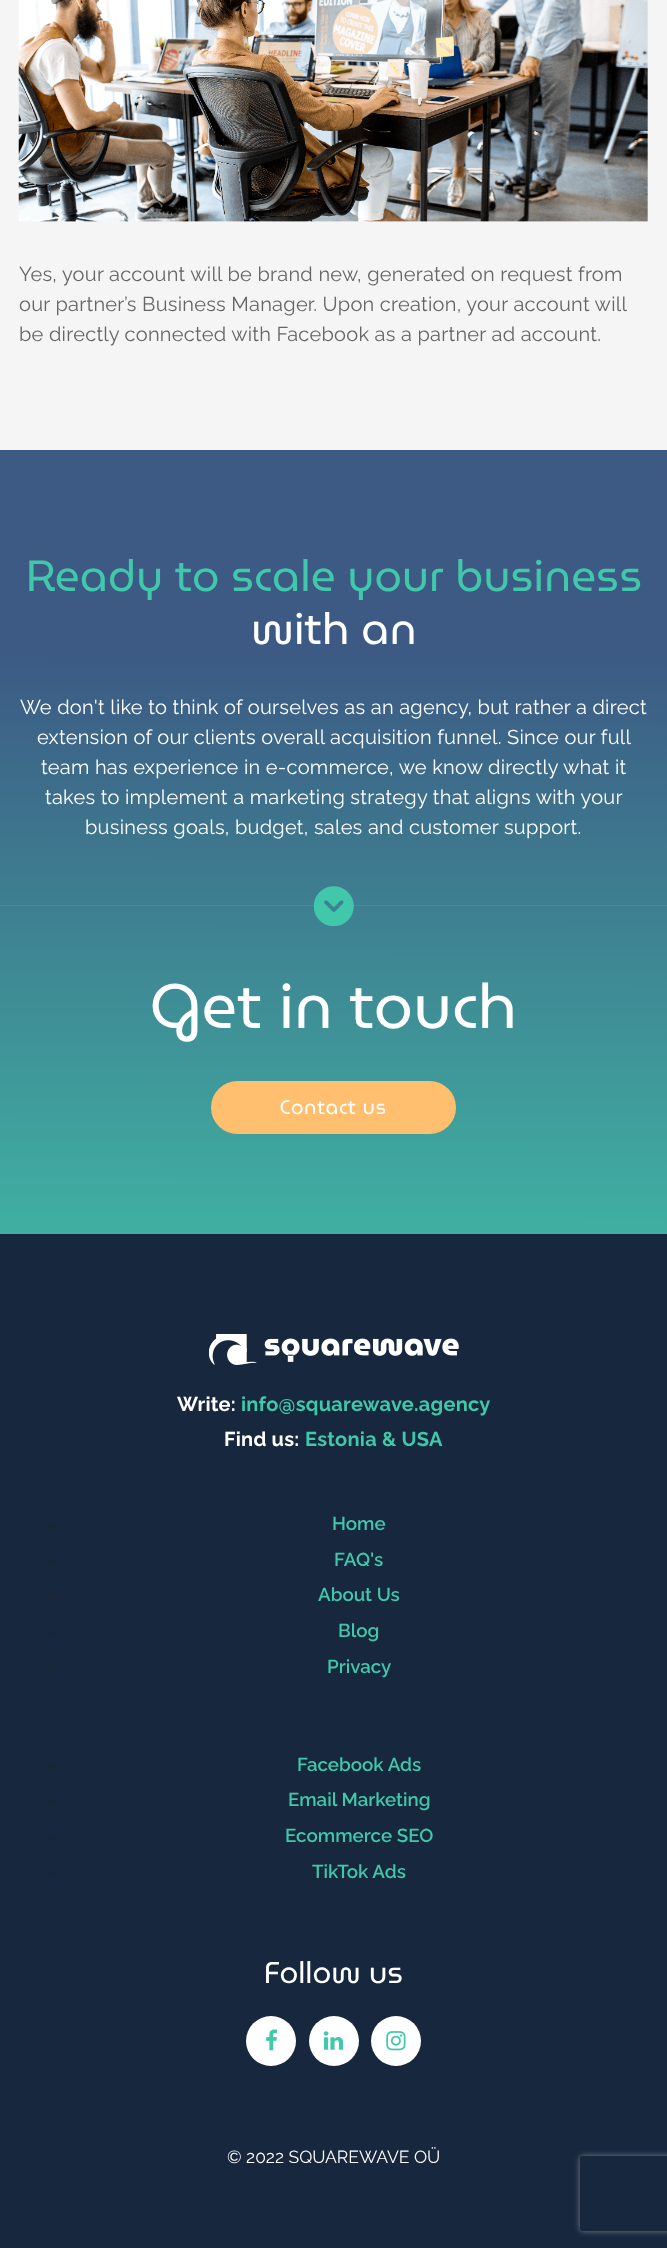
async function draw(canvas) {
  canvas.width = 667
  canvas.height = 2248
  const ctx = canvas.getContext('2d')
  ctx.miterLimit = 4
  ctx.fontKerning = 'normal'
  async function loadImage(src) {
    const img = new Image()
    img.src = src
    await img.decode()
    return img
  }
  let gradient

  ctx.fillStyle = '#f6f5f5'
  ctx.fillRect(0, 0, 667, 2248)
  ctx.drawImage(await loadImage('image0.png'), 18, 0, 630, 222)
  ctx.letterSpacing = '0.25px'
  ctx.font = '20px Raleway'
  ctx.fillStyle = '#666'
  ctx.fillText('Yes, your account will be brand new, generated on request from', 19, 281)
  ctx.fillText('our partner’s Business Manager. Upon creation, your account will', 19, 311)
  ctx.fillText('be directly connected with Facebook as a partner ad account.', 19, 341)
  gradient = ctx.createLinearGradient(427, 653, 426, 1391)
  gradient.addColorStop(0, '#3c5a84')
  gradient.addColorStop(1, '#41c7aa')
  ctx.fillStyle = gradient
  ctx.beginPath()
  ctx.moveTo(-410, 450)
  ctx.lineTo(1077, 450)
  ctx.lineTo(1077, 1234)
  ctx.lineTo(-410, 1234)
  ctx.lineTo(-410, 450)
  ctx.fill('evenodd')
  ctx.letterSpacing = '0px'
  ctx.font = '43.75px MuseoModerno'
  ctx.fillStyle = '#41c7aa'
  ctx.fillText('Ready to scale your business', 26, 591)
  ctx.fillStyle = '#fff'
  ctx.fillText('with an', 251, 644)
  ctx.letterSpacing = '0.25px'
  ctx.font = '20px Raleway'
  ctx.fillText('We don\'t like to think of ourselves as an agency, but rather a direct', 20, 714)
  ctx.fillText('extension of our clients overall acquisition funnel. Since our full', 37, 744)
  ctx.fillText('team has experience in e-commerce, we know directly what it', 41, 774)
  ctx.fillText('takes to implement a marketing strategy that aligns with your', 45, 804)
  ctx.fillText('business goals, budget, sales and customer support.', 85, 834)
  ctx.fillStyle = '#4c8899'
  ctx.fillRect(0, 905, 667, 1)
  ctx.drawImage(await loadImage('image1.png'), 314, 886, 40, 40)
  ctx.letterSpacing = '0px'
  ctx.font = '62.5px MuseoModerno'
  ctx.fillStyle = '#fff'
  ctx.fillText('Get in touch', 150, 1028)
  ctx.fillStyle = '#ffbf6e'
  ctx.beginPath()
  ctx.roundRect(211, 1081, 245, 53, 26.5)
  ctx.fill()
  ctx.letterSpacing = '0.6px'
  ctx.font = '20px MuseoModerno'
  ctx.fillStyle = '#fff'
  ctx.fillText('Contact us', 280, 1114)
  ctx.fillStyle = '#16273e'
  ctx.fillRect(0, 1234, 667, 1014)
  ctx.drawImage(await loadImage('image2.png'), 209, 1334, 250, 31)
  ctx.letterSpacing = '0.25px'
  ctx.font = 'bold 20px Raleway'
  ctx.fillStyle = '#fff'
  ctx.fillText('Write:', 177, 1411)
  ctx.fillStyle = '#41c7aa'
  ctx.fillText('info@squarewave.agency', 241, 1411)
  ctx.fillStyle = '#fff'
  ctx.fillText('Find us:', 224, 1446)
  ctx.fillStyle = '#41c7aa'
  ctx.fillText('Estonia & USA', 305, 1446)
  ctx.beginPath()
  ctx.arc(53, 1526, 2.5, 0, 2 * Math.PI)
  ctx.strokeStyle = '#212529'
  ctx.stroke()
  ctx.letterSpacing = '0px'
  ctx.font = '600 18.75px Raleway'
  ctx.fillText('Home', 332, 1530)
  ctx.beginPath()
  ctx.arc(53, 1562, 2.5, 0, 2 * Math.PI)
  ctx.stroke()
  ctx.fillText('FAQ\'s', 334, 1566)
  ctx.beginPath()
  ctx.arc(53, 1597, 2.5, 0, 2 * Math.PI)
  ctx.stroke()
  ctx.fillText('About Us', 318, 1601)
  ctx.beginPath()
  ctx.arc(53, 1633, 2.5, 0, 2 * Math.PI)
  ctx.stroke()
  ctx.fillText('Blog', 338, 1637)
  ctx.beginPath()
  ctx.arc(53, 1668, 2.5, 0, 2 * Math.PI)
  ctx.stroke()
  ctx.fillText('Privacy', 327, 1673)
  ctx.beginPath()
  ctx.arc(53, 1767, 2.5, 0, 2 * Math.PI)
  ctx.stroke()
  ctx.fillText('Facebook Ads', 297, 1771)
  ctx.beginPath()
  ctx.arc(53, 1802, 2.5, 0, 2 * Math.PI)
  ctx.stroke()
  ctx.fillText('Email Marketing', 288, 1806)
  ctx.beginPath()
  ctx.arc(53, 1838, 2.5, 0, 2 * Math.PI)
  ctx.stroke()
  ctx.fillText('Ecommerce SEO', 285, 1842)
  ctx.beginPath()
  ctx.arc(53, 1873, 2.5, 0, 2 * Math.PI)
  ctx.stroke()
  ctx.fillText('TikTok Ads', 312, 1878)
  ctx.font = '30px MuseoModerno'
  ctx.fillStyle = '#fff'
  ctx.fillText('Follow us', 264, 1983)
  ctx.beginPath()
  ctx.arc(271, 2041, 25, 0, 2 * Math.PI)
  ctx.fill()
  ctx.drawImage(await loadImage('image3.png'), 266, 2029, 12, 22)
  ctx.beginPath()
  ctx.arc(334, 2041, 25, 0, 2 * Math.PI)
  ctx.fill()
  ctx.drawImage(await loadImage('image4.png'), 323, 2031, 21, 19)
  ctx.beginPath()
  ctx.arc(396, 2041, 25, 0, 2 * Math.PI)
  ctx.fill()
  ctx.drawImage(await loadImage('image5.png'), 386, 2031, 20, 20)
  ctx.font = '17.5px Raleway'
  ctx.fillText('© 2022 SQUAREWAVE OÜ', 227, 2163)
  ctx.save()
  ctx.beginPath()
  ctx.moveTo(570, 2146)
  ctx.lineTo(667, 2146)
  ctx.lineTo(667, 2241)
  ctx.lineTo(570, 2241)
  ctx.closePath()
  ctx.moveTo(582.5, 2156)
  ctx.lineTo(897.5, 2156)
  ctx.bezierCurveTo(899, 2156, 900, 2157, 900, 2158.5)
  ctx.lineTo(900, 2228.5)
  ctx.bezierCurveTo(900, 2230, 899, 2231, 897.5, 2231)
  ctx.lineTo(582.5, 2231)
  ctx.bezierCurveTo(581, 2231, 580, 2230, 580, 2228.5)
  ctx.lineTo(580, 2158.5)
  ctx.bezierCurveTo(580, 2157, 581, 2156, 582.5, 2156)
  ctx.closePath()
  ctx.clip('evenodd')
  ctx.fillStyle = '#808080'
  ctx.filter = 'blur(3px)'
  ctx.beginPath()
  ctx.roundRect(580, 2156, 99, 75, 2.5)
  ctx.fill()
  ctx.filter = 'none'
  ctx.restore()
}

draw(document.querySelector('canvas'))
